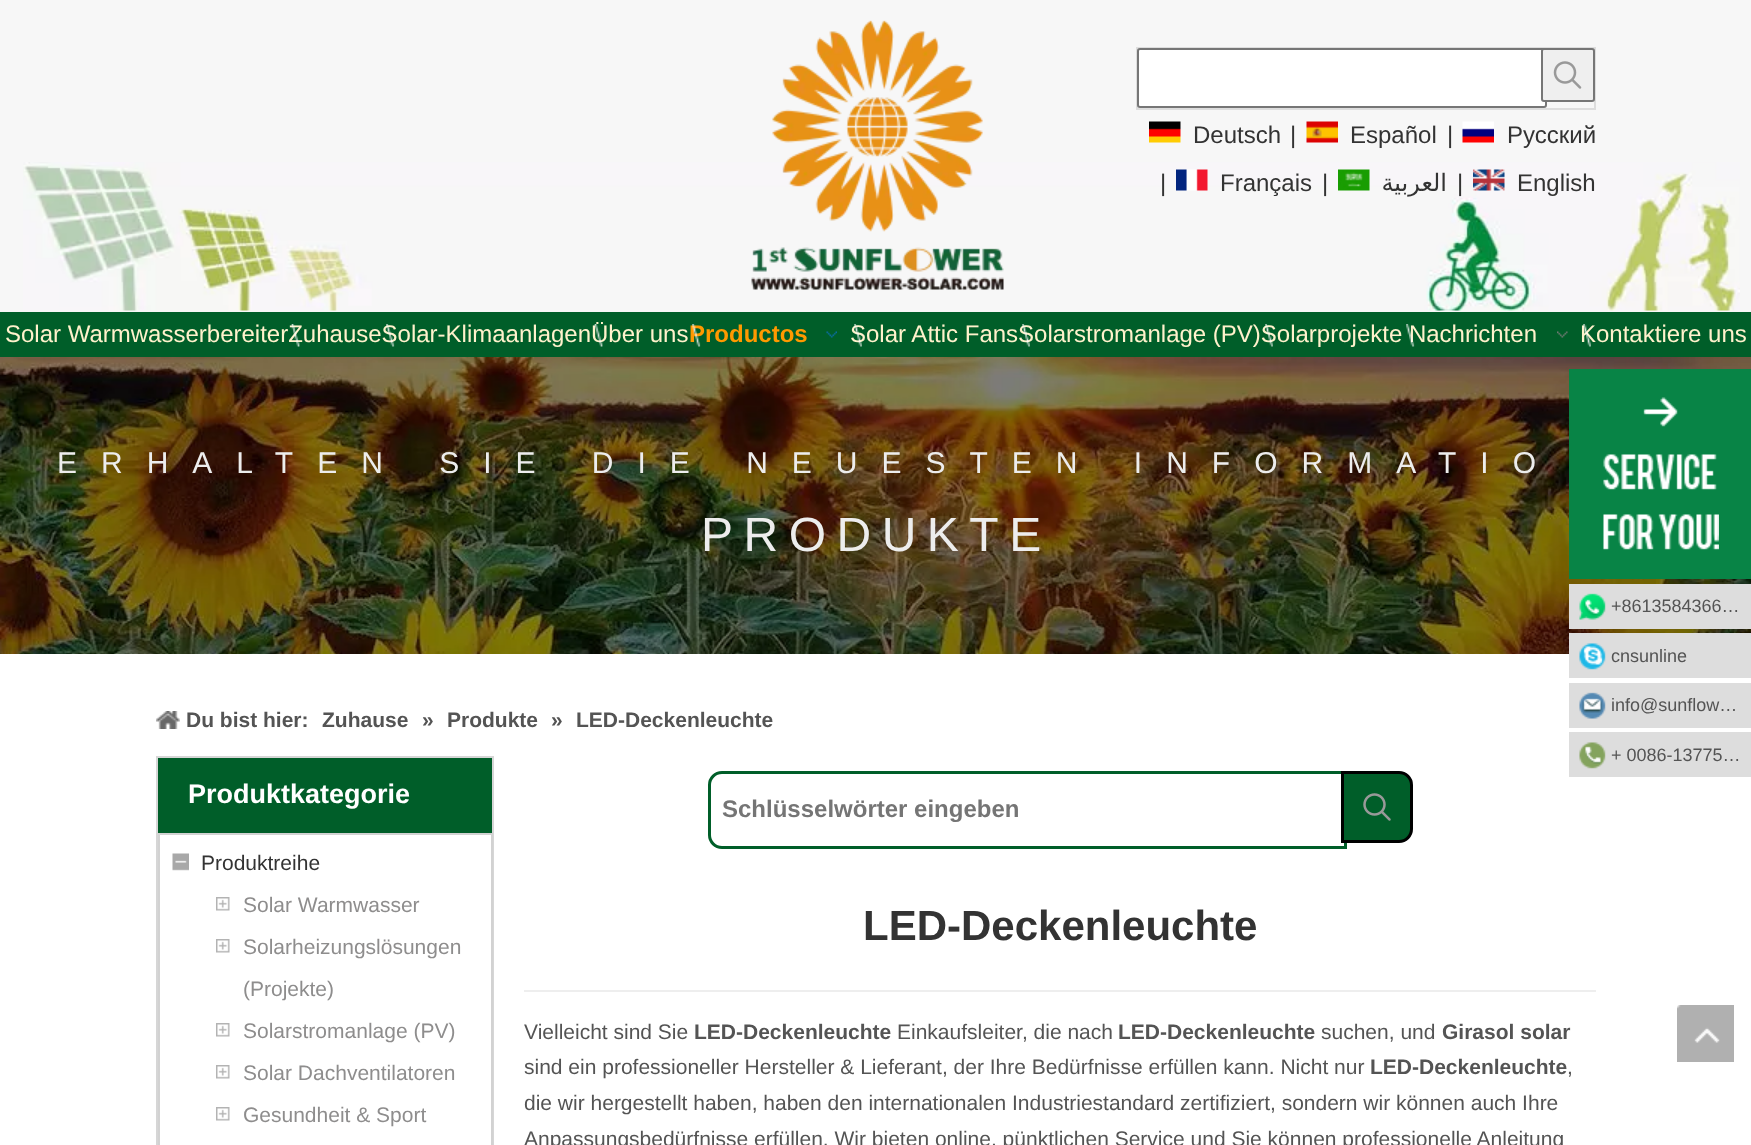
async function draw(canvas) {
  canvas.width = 1751
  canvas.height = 1145
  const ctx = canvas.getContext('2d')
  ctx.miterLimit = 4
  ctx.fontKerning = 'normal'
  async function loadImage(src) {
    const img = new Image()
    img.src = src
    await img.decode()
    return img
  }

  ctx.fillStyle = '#fff'
  ctx.fillRect(0, 0, 1751, 1145)
  ctx.fillStyle = '#f7f7f7'
  ctx.fillRect(0, 0, 1751, 312)
  ctx.drawImage(await loadImage('image0.png'), 23, 162, 1717, 149)
  ctx.drawImage(await loadImage('image1.png'), 751, 20, 253, 270)
  ctx.strokeStyle = '#ddd'
  ctx.lineWidth = 2
  ctx.strokeRect(1137, 48, 458, 61)
  ctx.fillStyle = '#fff'
  ctx.beginPath()
  ctx.roundRect(1138, 49, 408, 58, 2)
  ctx.fill()
  ctx.strokeStyle = '#767676'
  ctx.stroke()
  ctx.fillStyle = '#efefef'
  ctx.beginPath()
  ctx.roundRect(1542, 49, 52, 52, 2)
  ctx.fill()
  ctx.stroke()
  ctx.drawImage(await loadImage('image2.png'), 1553, 61, 29, 28)
  ctx.drawImage(await loadImage('image3.png'), 1149, 121, 32, 22)
  ctx.font = '24px Liberation Sans'
  ctx.fillStyle = '#333'
  ctx.fillText('Deutsch', 1193, 143)
  ctx.fillText('|', 1290, 143)
  ctx.drawImage(await loadImage('image4.png'), 1306, 121, 32, 22)
  ctx.fillText('Español', 1350, 143)
  ctx.fillText('|', 1447, 143)
  ctx.drawImage(await loadImage('image5.png'), 1462, 121, 32, 22)
  ctx.fillText('Pусский', 1507, 143)
  ctx.fillText('|', 1160, 191)
  ctx.drawImage(await loadImage('image6.png'), 1176, 169, 32, 22)
  ctx.fillText('Français', 1220, 191)
  ctx.fillText('|', 1322, 191)
  ctx.drawImage(await loadImage('image7.png'), 1338, 169, 32, 22)
  ctx.direction = 'rtl'
  ctx.font = '24px DejaVu Sans'
  ctx.fillText('العربية', 1447, 191)
  ctx.direction = 'ltr'
  ctx.font = '24px Liberation Sans'
  ctx.fillText('|', 1457, 191)
  ctx.drawImage(await loadImage('image8.png'), 1473, 169, 32, 22)
  ctx.fillText('English', 1517, 191)
  ctx.fillStyle = '#005e29'
  ctx.fillRect(0, 312, 1751, 45)
  ctx.fillStyle = '#fff2cc'
  ctx.fillText('Solar WarmwasserbereiterZuhauseSolar-KlimaanlagenÜber uns', 5, 342)
  ctx.drawImage(await loadImage('image9.png'), 291, 324, 9, 23)
  ctx.drawImage(await loadImage('image10.png'), 386, 324, 9, 23)
  ctx.drawImage(await loadImage('image11.png'), 594, 324, 9, 23)
  ctx.font = 'bold 24px Liberation Sans'
  ctx.fillStyle = '#f90'
  ctx.fillText('Productos', 689, 342)
  ctx.drawImage(await loadImage('image12.png'), 826, 331, 11, 7)
  ctx.drawImage(await loadImage('image13.png'), 692, 324, 9, 23)
  ctx.font = '24px Liberation Sans'
  ctx.fillStyle = '#fff2cc'
  ctx.fillText('Solar Attic FansSolarstromanlage (PV)Solarprojekte Nachrichten', 850, 342)
  ctx.drawImage(await loadImage('image14.png'), 854, 324, 8, 23)
  ctx.drawImage(await loadImage('image15.png'), 1022, 324, 8, 23)
  ctx.drawImage(await loadImage('image16.png'), 1265, 324, 8, 23)
  ctx.drawImage(await loadImage('image17.png'), 1406, 324, 9, 23)
  ctx.drawImage(await loadImage('image18.png'), 1557, 331, 11, 7)
  ctx.fillText('Kontaktiere uns', 1580, 342)
  ctx.drawImage(await loadImage('image19.png'), 1583, 324, 8, 23)
  ctx.drawImage(await loadImage('image20.png'), 0, 357, 1751, 297)
  ctx.letterSpacing = '24px'
  ctx.font = '30px Liberation Sans'
  ctx.fillStyle = '#ededed'
  ctx.fillText('ERHALTEN SIE DIE NEUESTEN INFORMATIO', 57, 473)
  ctx.letterSpacing = '10.5px'
  ctx.font = '48px Liberation Sans'
  ctx.fillText('PRODUKTE', 701, 551)
  ctx.drawImage(await loadImage('image21.png'), 156, 711, 24, 18)
  ctx.letterSpacing = '0px'
  ctx.font = 'bold 21px Liberation Sans'
  ctx.fillStyle = '#545454'
  ctx.fillText('Du bist hier:', 186, 727)
  ctx.fillText('Zuhause', 322, 727)
  ctx.fillText('»', 422, 727)
  ctx.fillText('Produkte', 447, 727)
  ctx.fillText('»', 551, 727)
  ctx.fillText('LED-Deckenleuchte', 576, 727)
  ctx.strokeStyle = '#d6d6d6'
  ctx.strokeRect(157, 757, 336, 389)
  ctx.fillStyle = '#005e29'
  ctx.fillRect(158, 758, 334, 75)
  ctx.font = 'bold 27px Liberation Sans'
  ctx.fillStyle = '#fff'
  ctx.fillText('Produktkategorie', 188, 803)
  ctx.fillStyle = '#d2d2d2'
  ctx.fillRect(491, 833, 2, 312)
  ctx.fillRect(158, 833, 2, 312)
  ctx.fillRect(159, 833, 332, 2)
  ctx.drawImage(await loadImage('image22.png'), 172, 853, 17, 18)
  ctx.font = '21px Liberation Sans'
  ctx.fillStyle = '#333'
  ctx.fillText('Produktreihe', 201, 870)
  ctx.drawImage(await loadImage('image23.png'), 216, 897, 14, 14)
  ctx.fillStyle = '#8e8d8d'
  ctx.fillText('Solar Warmwasser', 243, 912)
  ctx.drawImage(await loadImage('image23.png'), 216, 939, 14, 14)
  ctx.fillText('Solarheizungslösungen', 243, 954)
  ctx.fillText('(Projekte)', 243, 996)
  ctx.drawImage(await loadImage('image23.png'), 216, 1023, 14, 14)
  ctx.fillText('Solarstromanlage (PV)', 243, 1038)
  ctx.drawImage(await loadImage('image23.png'), 216, 1065, 14, 14)
  ctx.fillText('Solar Dachventilatoren', 243, 1080)
  ctx.drawImage(await loadImage('image23.png'), 216, 1107, 14, 14)
  ctx.fillText('Gesundheit & Sport', 243, 1122)
  ctx.beginPath()
  ctx.roundRect(709.5, 772.5, 636, 75, [12.5, 0, 0, 12.5])
  ctx.strokeStyle = '#005e29'
  ctx.lineWidth = 3
  ctx.stroke()
  ctx.font = 'bold 24px Liberation Sans'
  ctx.fillStyle = '#757575'
  ctx.fillText('Schlüsselwörter eingeben', 722, 817)
  ctx.fillStyle = '#005e29'
  ctx.beginPath()
  ctx.roundRect(1342.5, 772.5, 69, 69, [0, 12.5, 12.5, 0])
  ctx.fill()
  ctx.strokeStyle = '#000'
  ctx.stroke()
  ctx.drawImage(await loadImage('image24.png'), 1363, 793, 28, 28)
  ctx.fillStyle = '#eee'
  ctx.fillRect(524, 990, 1072, 2)
  ctx.font = 'bold 42px Liberation Sans'
  ctx.fillStyle = '#333'
  ctx.fillText('LED-Deckenleuchte', 863, 940)
  ctx.font = '21px Liberation Sans'
  ctx.fillStyle = '#545454'
  ctx.fillText('Vielleicht sind Sie', 524, 1039)
  ctx.font = 'bold 21px Liberation Sans'
  ctx.fillText('LED-Deckenleuchte', 694, 1039)
  ctx.font = '21px Liberation Sans'
  ctx.fillText('Einkaufsleiter, die nach', 897, 1039)
  ctx.font = 'bold 21px Liberation Sans'
  ctx.fillText('LED-Deckenleuchte', 1118, 1039)
  ctx.font = '21px Liberation Sans'
  ctx.fillText('suchen, und', 1321, 1039)
  ctx.font = 'bold 21px Liberation Sans'
  ctx.fillText('Girasol solar', 1442, 1039)
  ctx.font = '21px Liberation Sans'
  ctx.fillText('sind ein professioneller Hersteller & Lieferant, der Ihre Bedürfnisse erfüllen kann. Nicht nur', 524, 1074)
  ctx.font = 'bold 21px Liberation Sans'
  ctx.fillText('LED-Deckenleuchte', 1370, 1074)
  ctx.font = '21px Liberation Sans'
  ctx.fillText(',', 1567, 1074)
  ctx.fillText('die wir hergestellt haben, haben den internationalen Industriestandard zertifiziert, sondern wir können auch Ihre', 524, 1110)
  ctx.fillText('Anpassungsbedürfnisse erfüllen. Wir bieten online, pünktlichen Service und Sie können professionelle Anleitung', 524, 1146)
  ctx.fillStyle = '#088446'
  ctx.fillRect(1569, 369, 182, 210)
  ctx.drawImage(await loadImage('image25.png'), 1603, 397, 116, 153)
  ctx.fillStyle = '#ddd'
  ctx.fillRect(1569, 584, 182, 45)
  ctx.drawImage(await loadImage('image26.png'), 1579, 593, 27, 27)
  ctx.font = '18px Liberation Sans'
  ctx.fillStyle = '#545454'
  ctx.fillText('+8613584366…', 1611, 612)
  ctx.fillStyle = '#ddd'
  ctx.fillRect(1569, 633, 182, 45)
  ctx.drawImage(await loadImage('image27.png'), 1579, 643, 27, 27)
  ctx.fillStyle = '#545454'
  ctx.fillText('cnsunline', 1611, 662)
  ctx.fillStyle = '#ddd'
  ctx.fillRect(1569, 683, 182, 45)
  ctx.drawImage(await loadImage('image28.png'), 1579, 692, 27, 27)
  ctx.fillStyle = '#545454'
  ctx.fillText('info@sunflow…', 1611, 711)
  ctx.fillStyle = '#ddd'
  ctx.fillRect(1569, 732, 182, 45)
  ctx.drawImage(await loadImage('image29.png'), 1579, 742, 27, 27)
  ctx.fillStyle = '#545454'
  ctx.fillText('+ 0086-13775…', 1611, 761)
  ctx.drawImage(await loadImage('image30.png'), 1677, 1005, 57, 57)
}

draw(document.querySelector('canvas'))
